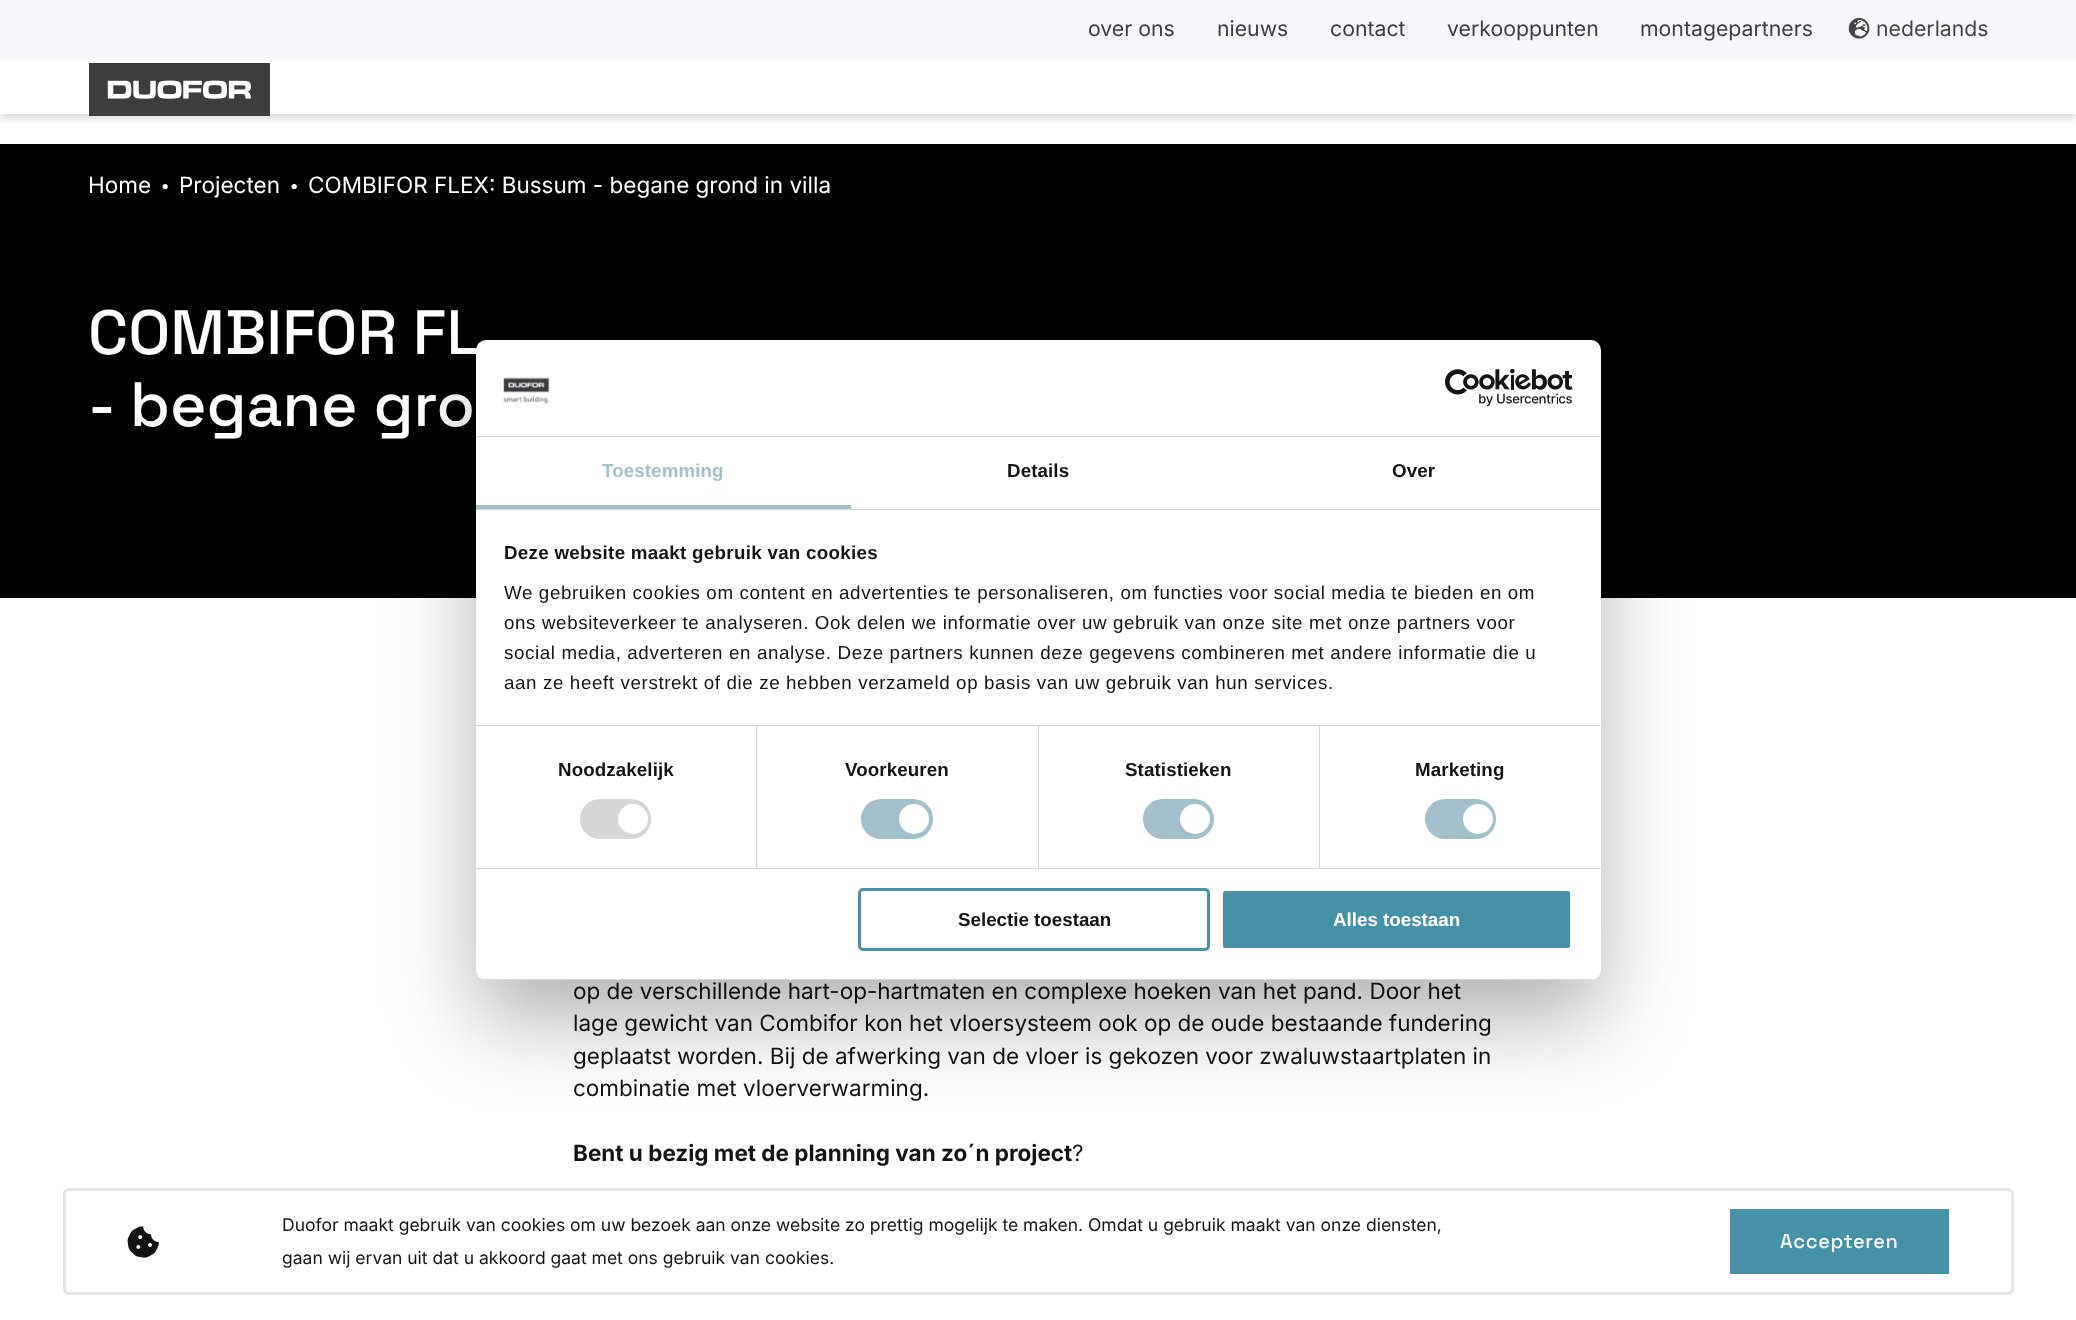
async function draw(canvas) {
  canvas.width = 2076
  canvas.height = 1320
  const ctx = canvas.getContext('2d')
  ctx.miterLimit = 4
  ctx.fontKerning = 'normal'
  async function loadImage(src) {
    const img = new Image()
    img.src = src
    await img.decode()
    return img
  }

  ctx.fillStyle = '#fff'
  ctx.fillRect(0, 0, 2076, 1320)
  ctx.fillStyle = '#00000029'
  ctx.filter = 'blur(4px)'
  ctx.beginPath()
  ctx.rect(0, 64, 2076, 54)
  ctx.fill()
  ctx.filter = 'none'
  ctx.fillStyle = '#f6f8fc'
  ctx.fillRect(0, 0, 2076, 60)
  ctx.font = '21.25px Inter'
  ctx.fillStyle = '#3d3c3f'
  ctx.fillText('over ons', 1088, 36)
  ctx.fillText('nieuws', 1217, 36)
  ctx.fillText('contact', 1330, 36)
  ctx.fillText('verkooppunten', 1447, 36)
  ctx.fillText('montagepartners', 1640, 36)
  ctx.drawImage(await loadImage('image0.png'), 1848, 18, 22, 21)
  ctx.fillStyle = '#444'
  ctx.fillText('nederlands', 1876, 36)
  ctx.fillStyle = '#fff'
  ctx.fillRect(0, 60, 2076, 54)
  ctx.drawImage(await loadImage('image1.png'), 89, 63, 181, 53)
  ctx.fillStyle = '#000'
  ctx.fillRect(0, 144, 2076, 454)
  ctx.font = '22.5px Inter'
  ctx.fillStyle = '#fff'
  ctx.fillText('Home', 88, 193)
  ctx.font = 'bold 31px Inter'
  ctx.fillText('.', 160, 189)
  ctx.font = '22.5px Inter'
  ctx.fillText('Projecten', 179, 193)
  ctx.font = 'bold 31px Inter'
  ctx.fillText('.', 289, 189)
  ctx.font = '22.5px Inter'
  ctx.fillText('COMBIFOR FLEX: Bussum - begane grond in villa', 308, 193)
  ctx.font = '500 62.5px Space Grotesk'
  ctx.fillText('COMBIFOR FL', 88, 354)
  ctx.fillText('- begane gro', 88, 426)
  ctx.font = '22.5px Inter'
  ctx.fillStyle = '#141414'
  ctx.fillText('op de verschillende hart-op-hartmaten en complexe hoeken van het pand. Door het', 573, 999)
  ctx.fillText('lage gewicht van Combifor kon het vloersysteem ook op de oude bestaande fundering', 573, 1031)
  ctx.fillText('geplaatst worden. Bij de afwerking van de vloer is gekozen voor zwaluwstaartplaten in', 573, 1064)
  ctx.fillText('combinatie met vloerverwarming.', 573, 1096)
  ctx.font = 'bold 22.5px Inter'
  ctx.fillText('Bent u bezig met de planning van zo´n project', 573, 1161)
  ctx.font = '22.5px Inter'
  ctx.fillText('?', 1072, 1161)
  ctx.beginPath()
  ctx.roundRect(64.5, 1189.5, 1948, 104, 4.5)
  ctx.strokeStyle = '#e5e5e5'
  ctx.lineWidth = 3
  ctx.stroke()
  ctx.drawImage(await loadImage('image2.png'), 127, 1226, 32, 32)
  ctx.font = '17.5px Inter'
  ctx.fillText('Duofor maakt gebruik van cookies om uw bezoek aan onze website zo prettig mogelijk te maken. Omdat u gebruik maakt van onze diensten,', 282, 1231)
  ctx.fillText('gaan wij ervan uit dat u akkoord gaat met ons gebruik van cookies.', 282, 1264)
  ctx.fillStyle = '#4592a8'
  ctx.fillRect(1730, 1209, 219, 65)
  ctx.letterSpacing = '0.62px'
  ctx.font = '500 20px Space Grotesk'
  ctx.fillStyle = '#fff'
  ctx.fillText('Accepteren', 1780, 1248)
  ctx.fillStyle = '#0000004d'
  ctx.filter = 'blur(42.5px)'
  ctx.beginPath()
  ctx.roundRect(476, 380, 1125, 640, 10)
  ctx.fill()
  ctx.filter = 'none'
  ctx.fillStyle = '#fff'
  ctx.beginPath()
  ctx.roundRect(476, 340, 1125, 640, 10)
  ctx.fill()
  ctx.fillStyle = '#d6d6d6'
  ctx.fillRect(476, 436, 1125, 1)
  ctx.drawImage(await loadImage('image3.png'), 503, 377, 47, 27)
  ctx.drawImage(await loadImage('image4.png'), 1445, 369, 128, 37)
  ctx.fillRect(476, 509, 1125, 1)
  ctx.fillStyle = '#a2c0c9'
  ctx.fillRect(476, 505, 375, 4)
  ctx.letterSpacing = '0.1px'
  ctx.font = 'bold 18.75px Liberation Sans'
  ctx.fillText('Toestemming', 602, 477)
  ctx.fillStyle = '#141414'
  ctx.fillText('Details', 1007, 477)
  ctx.fillText('Over', 1392, 477)
  ctx.fillStyle = '#d6d6d6'
  ctx.fillRect(476, 725, 1125, 1)
  ctx.letterSpacing = '0.3px'
  ctx.fillStyle = '#141414'
  ctx.fillText('Deze website maakt gebruik van cookies', 504, 559)
  ctx.letterSpacing = '0.62px'
  ctx.font = '18.75px Liberation Sans'
  ctx.fillText('We gebruiken cookies om content en advertenties te personaliseren, om functies voor social media te bieden en om', 504, 599)
  ctx.fillText('ons websiteverkeer te analyseren. Ook delen we informatie over uw gebruik van onze site met onze partners voor', 504, 629)
  ctx.fillText('social media, adverteren en analyse. Deze partners kunnen deze gegevens combineren met andere informatie die u', 504, 659)
  ctx.fillText('aan ze heeft verstrekt of die ze hebben verzameld op basis van uw gebruik van hun services.', 504, 689)
  ctx.fillStyle = '#d6d6d6'
  ctx.fillRect(476, 868, 1125, 1)
  ctx.fillRect(756, 726, 1, 142)
  ctx.letterSpacing = '0.1px'
  ctx.font = 'bold 18.75px Liberation Sans'
  ctx.fillStyle = '#141414'
  ctx.fillText('Noodzakelijk', 558, 776)
  ctx.fillStyle = '#d6d6d6'
  ctx.beginPath()
  ctx.roundRect(580, 799, 71, 40, 20)
  ctx.fill()
  ctx.fillStyle = '#fff'
  ctx.beginPath()
  ctx.arc(633, 819, 15, 0, 2 * Math.PI)
  ctx.fill()
  ctx.fillStyle = '#d6d6d6'
  ctx.fillRect(1038, 726, 1, 142)
  ctx.fillStyle = '#141414'
  ctx.fillText('Voorkeuren', 845, 776)
  ctx.fillStyle = '#a2c0c9'
  ctx.beginPath()
  ctx.roundRect(861, 799, 72, 40, 20)
  ctx.fill()
  ctx.fillStyle = '#fff'
  ctx.beginPath()
  ctx.arc(914, 819, 15, 0, 2 * Math.PI)
  ctx.fill()
  ctx.fillStyle = '#d6d6d6'
  ctx.fillRect(1319, 726, 1, 142)
  ctx.fillStyle = '#141414'
  ctx.fillText('Statistieken', 1125, 776)
  ctx.fillStyle = '#a2c0c9'
  ctx.beginPath()
  ctx.roundRect(1143, 799, 71, 40, 20)
  ctx.fill()
  ctx.fillStyle = '#fff'
  ctx.beginPath()
  ctx.arc(1195, 819, 15, 0, 2 * Math.PI)
  ctx.fill()
  ctx.fillStyle = '#141414'
  ctx.fillText('Marketing', 1415, 776)
  ctx.fillStyle = '#a2c0c9'
  ctx.beginPath()
  ctx.roundRect(1425, 799, 71, 40, 20)
  ctx.fill()
  ctx.fillStyle = '#fff'
  ctx.beginPath()
  ctx.arc(1478, 819, 15, 0, 2 * Math.PI)
  ctx.fill()
  ctx.save()
  ctx.beginPath()
  ctx.roundRect(476, 340, 1125, 640, 10)
  ctx.clip()
  ctx.fillStyle = '#d6d6d6'
  ctx.fillRect(476, 979, 1125, 1)
  ctx.restore()
  ctx.beginPath()
  ctx.roundRect(859.5, 889.5, 349, 60, 3.5)
  ctx.strokeStyle = '#4592a8'
  ctx.stroke()
  ctx.letterSpacing = '0px'
  ctx.fillStyle = '#141414'
  ctx.fillText('Selectie toestaan', 958, 926)
  ctx.fillStyle = '#4592a8'
  ctx.beginPath()
  ctx.roundRect(1221.5, 889.5, 350, 60, 3.5)
  ctx.fill()
  ctx.strokeStyle = '#fff'
  ctx.stroke()
  ctx.fillStyle = '#fff'
  ctx.fillText('Alles toestaan', 1333, 926)
}

draw(document.querySelector('canvas'))
